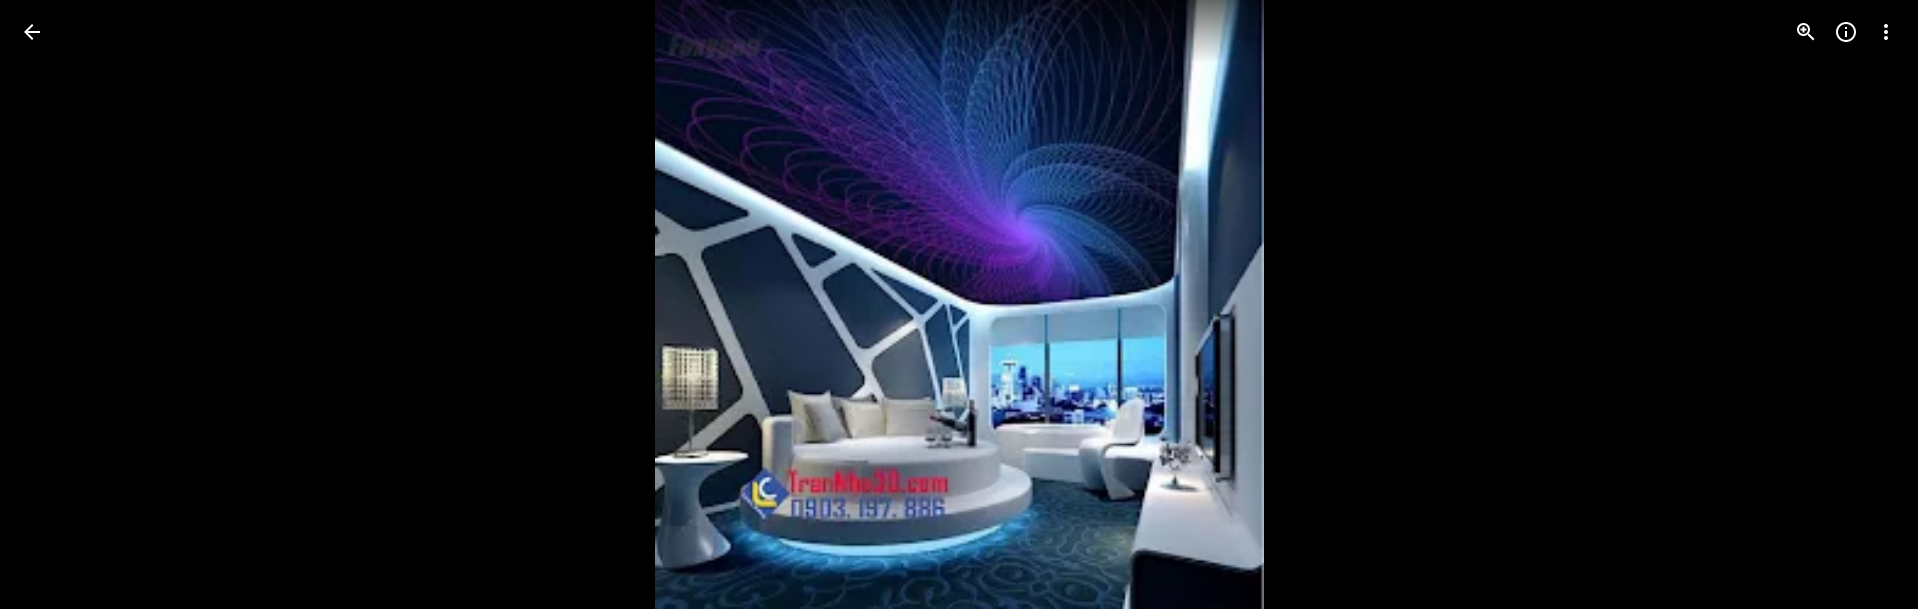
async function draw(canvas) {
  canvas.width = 1918
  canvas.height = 609
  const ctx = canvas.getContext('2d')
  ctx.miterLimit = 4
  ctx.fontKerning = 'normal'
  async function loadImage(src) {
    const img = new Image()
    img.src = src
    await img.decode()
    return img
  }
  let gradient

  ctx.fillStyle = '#000'
  ctx.fillRect(0, 0, 1918, 609)
  ctx.drawImage(await loadImage('image4.png'), 655, 0, 609, 609)
  gradient = ctx.createLinearGradient(959, 0, 959, 64)
  gradient.addColorStop(0, '#00000099')
  gradient.addColorStop(1, '#00000000')
  ctx.fillStyle = gradient
  ctx.fillRect(655, 0, 609, 62)
  ctx.drawImage(await loadImage('image0.png'), 24, 24, 16, 16)
  ctx.drawImage(await loadImage('image1.png'), 1797, 23, 18, 18)
  ctx.drawImage(await loadImage('image2.png'), 1836, 22, 20, 20)
  ctx.drawImage(await loadImage('image3.png'), 1884, 24, 4, 16)
}

draw(document.querySelector('canvas'))
